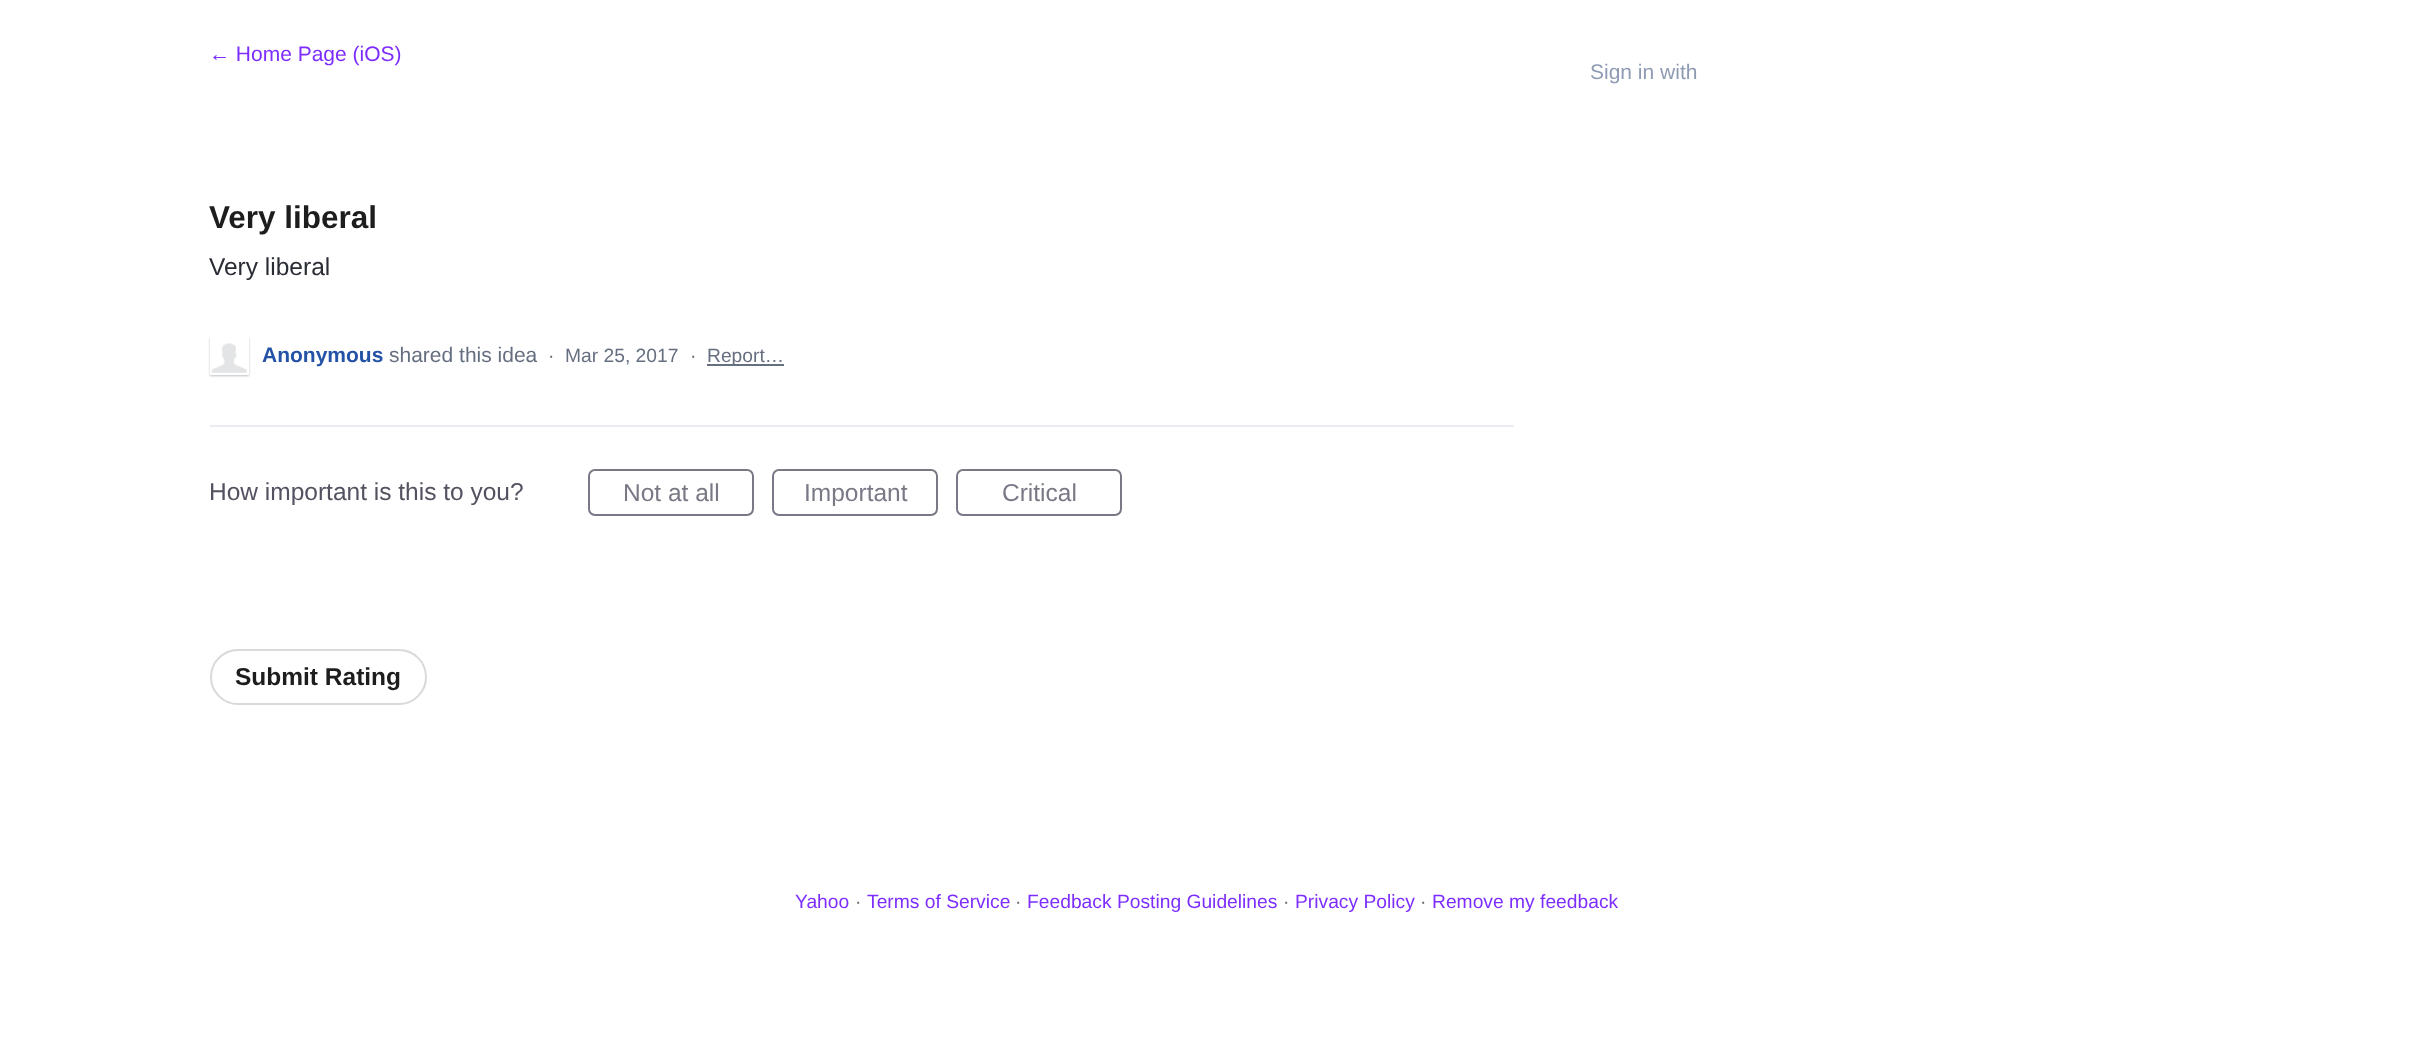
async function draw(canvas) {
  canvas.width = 2412
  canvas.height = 1037
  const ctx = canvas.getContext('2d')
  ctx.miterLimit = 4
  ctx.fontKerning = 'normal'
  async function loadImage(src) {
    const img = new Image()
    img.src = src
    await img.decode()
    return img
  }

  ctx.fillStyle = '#fff'
  ctx.fillRect(0, 0, 2412, 1037)
  ctx.font = '21px Liberation Sans'
  ctx.fillStyle = '#7d2eff'
  ctx.fillText('← Home Page (iOS)', 209, 61)
  ctx.font = 'bold 31.5px Liberation Sans'
  ctx.fillStyle = '#1d1d1d'
  ctx.fillText('Very liberal', 209, 228)
  ctx.font = '24.5px Liberation Sans'
  ctx.fillStyle = '#292c33'
  ctx.fillText('Very liberal', 209, 275)
  ctx.save()
  ctx.beginPath()
  ctx.moveTo(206, 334)
  ctx.lineTo(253, 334)
  ctx.lineTo(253, 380)
  ctx.lineTo(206, 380)
  ctx.closePath()
  ctx.moveTo(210, 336)
  ctx.lineTo(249, 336)
  ctx.lineTo(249, 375)
  ctx.lineTo(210, 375)
  ctx.closePath()
  ctx.clip('evenodd')
  ctx.fillStyle = '#00000040'
  ctx.filter = 'blur(1px)'
  ctx.beginPath()
  ctx.rect(210, 338, 39, 38)
  ctx.fill()
  ctx.filter = 'none'
  ctx.restore()
  ctx.strokeStyle = '#fff'
  ctx.lineWidth = 2
  ctx.strokeRect(211, 337, 37, 37)
  ctx.drawImage(await loadImage('image0.png'), 211, 343, 36, 30)
  ctx.font = 'bold 21px Liberation Sans'
  ctx.fillStyle = '#2452a6'
  ctx.fillText('Anonymous', 262, 362)
  ctx.font = '21px Liberation Sans'
  ctx.fillStyle = '#666f80'
  ctx.fillText('shared this idea', 389, 362)
  ctx.font = '19.25px Liberation Sans'
  ctx.fillStyle = '#646b72'
  ctx.fillText('·', 548, 362)
  ctx.fillStyle = '#666f80'
  ctx.fillText('Mar 25, 2017', 565, 362)
  ctx.fillStyle = '#646b72'
  ctx.fillText('·', 690, 362)
  ctx.fillStyle = '#666f80'
  ctx.fillRect(707, 364, 77, 2)
  ctx.fillText('Report…', 707, 362)
  ctx.fillStyle = '#ebebf1'
  ctx.fillRect(210, 425, 1304, 2)
  ctx.font = '24.5px Liberation Sans'
  ctx.fillStyle = '#525260'
  ctx.fillText('How important is this to you?', 209, 500)
  ctx.beginPath()
  ctx.roundRect(589, 470, 164, 45, 6)
  ctx.strokeStyle = '#797986'
  ctx.stroke()
  ctx.fillStyle = '#797986'
  ctx.fillText('Not at all', 623, 501)
  ctx.beginPath()
  ctx.roundRect(773, 470, 164, 45, 6)
  ctx.stroke()
  ctx.fillText('Important', 804, 501)
  ctx.beginPath()
  ctx.roundRect(957, 470, 164, 45, 6)
  ctx.stroke()
  ctx.fillText('Critical', 1002, 501)
  ctx.beginPath()
  ctx.roundRect(211, 650, 215, 54, 27)
  ctx.strokeStyle = '#d9d9d9'
  ctx.stroke()
  ctx.font = 'bold 24.5px Liberation Sans'
  ctx.fillStyle = '#1d1d1d'
  ctx.fillText('Submit Rating', 235, 685)
  ctx.font = '21px Liberation Sans'
  ctx.fillStyle = '#8f9bb3'
  ctx.fillText('Sign in with', 1590, 79)
  ctx.font = '19.25px Liberation Sans'
  ctx.fillStyle = '#7d2eff'
  ctx.fillText('Yahoo', 795, 908)
  ctx.fillStyle = '#646b72'
  ctx.fillText('·', 855, 908)
  ctx.fillStyle = '#7d2eff'
  ctx.fillText('Terms of Service', 867, 908)
  ctx.fillStyle = '#646b72'
  ctx.fillText('·', 1015, 908)
  ctx.fillStyle = '#7d2eff'
  ctx.fillText('Feedback Posting Guidelines', 1027, 908)
  ctx.fillStyle = '#646b72'
  ctx.fillText('·', 1283, 908)
  ctx.fillStyle = '#7d2eff'
  ctx.fillText('Privacy Policy', 1295, 908)
  ctx.fillStyle = '#646b72'
  ctx.fillText('·', 1420, 908)
  ctx.fillStyle = '#7d2eff'
  ctx.fillText('Remove my feedback', 1432, 908)
}

draw(document.querySelector('canvas'))
